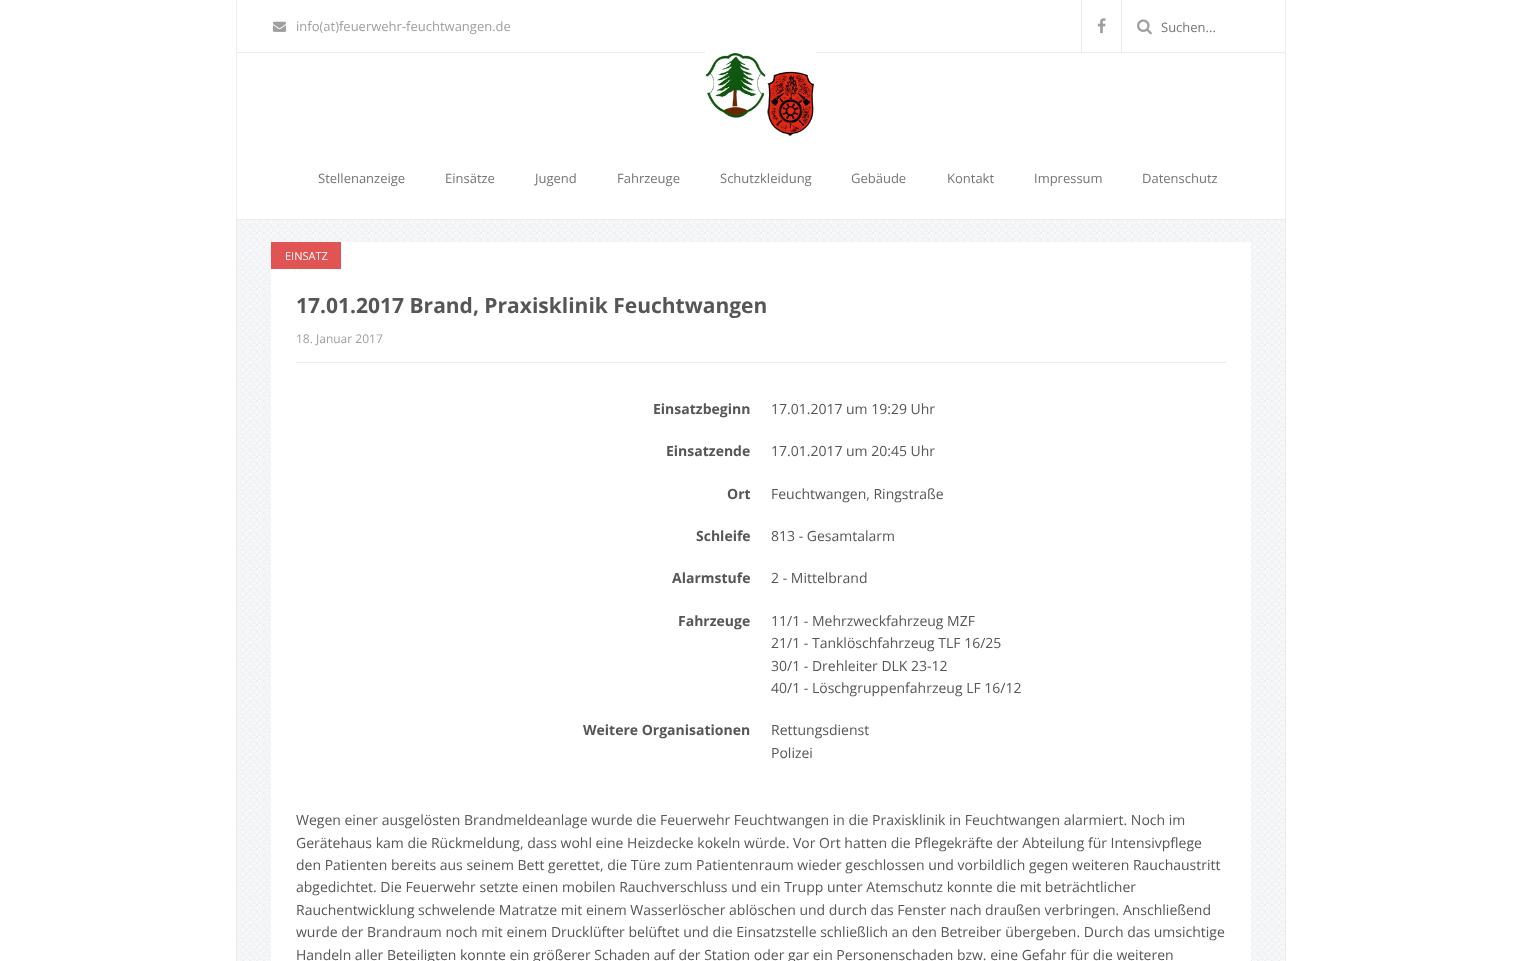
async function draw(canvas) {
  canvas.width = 1521
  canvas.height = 961
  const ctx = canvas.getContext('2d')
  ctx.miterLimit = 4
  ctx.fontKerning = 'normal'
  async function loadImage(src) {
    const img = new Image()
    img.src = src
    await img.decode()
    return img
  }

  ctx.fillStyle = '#fff'
  ctx.fillRect(0, 0, 1521, 961)
  ctx.fillStyle = '#ebebeb'
  ctx.fillRect(1285, 0, 1, 961)
  ctx.fillRect(236, 0, 1, 961)
  ctx.fillRect(237, 52, 1048, 1)
  ctx.drawImage(await loadImage('image0.png'), 273, 21, 13, 11)
  ctx.font = '13px Open Sans'
  ctx.fillStyle = '#9f9f9f'
  ctx.fillText('info(at)feuerwehr-feuchtwangen.de', 296, 31)
  ctx.fillStyle = '#ebebeb'
  ctx.fillRect(1081, 0, 1, 52)
  ctx.drawImage(await loadImage('image1.png'), 1097, 18, 9, 16)
  ctx.fillRect(1121, 0, 1, 52)
  ctx.drawImage(await loadImage('image2.png'), 1137, 19, 15, 16)
  ctx.fillStyle = '#757575'
  ctx.fillText('Suchen...', 1161, 32)
  ctx.fillStyle = '#ebebeb'
  ctx.fillRect(237, 219, 1048, 1)
  ctx.fillStyle = '#fff'
  ctx.fillRect(705, 52, 111, 1)
  ctx.drawImage(await loadImage('image3.png'), 705, 53, 109, 83)
  ctx.fillStyle = '#757575'
  ctx.fillText('Stellenanzeige', 318, 183)
  ctx.fillText('Einsätze', 445, 183)
  ctx.fillText('Jugend', 535, 183)
  ctx.fillText('Fahrzeuge', 617, 183)
  ctx.fillText('Schutzkleidung', 720, 183)
  ctx.fillText('Gebäude', 851, 183)
  ctx.fillText('Kontakt', 947, 183)
  ctx.fillText('Impressum', 1034, 183)
  ctx.fillText('Datenschutz', 1142, 183)
  ctx.drawImage(await loadImage('image4.png'), 237, 220, 1048, 741)
  ctx.fillStyle = '#fff'
  ctx.fillRect(271, 242, 980, 719)
  ctx.fillStyle = '#e15454'
  ctx.fillRect(271, 242, 70, 27)
  ctx.font = '11px Open Sans'
  ctx.fillStyle = '#fff'
  ctx.fillText('EINSATZ', 285, 260)
  ctx.font = 'bold 21px Open Sans'
  ctx.fillStyle = '#565656'
  ctx.fillText('17.01.2017 Brand, Praxisklinik Feuchtwangen', 296, 313)
  ctx.font = '12px Open Sans'
  ctx.fillStyle = '#9f9f9f'
  ctx.fillText('18. Januar 2017', 296, 343)
  ctx.fillStyle = '#ebebeb'
  ctx.fillRect(296, 362, 930, 1)
  ctx.font = 'bold 14px Open Sans'
  ctx.fillStyle = '#565656'
  ctx.fillText('Einsatzbeginn', 653, 414)
  ctx.font = '14px Open Sans'
  ctx.fillText('17.01.2017 um 19:29 Uhr', 771, 414)
  ctx.font = 'bold 14px Open Sans'
  ctx.fillText('Einsatzende', 666, 456)
  ctx.font = '14px Open Sans'
  ctx.fillText('17.01.2017 um 20:45 Uhr', 771, 456)
  ctx.font = 'bold 14px Open Sans'
  ctx.fillText('Ort', 727, 499)
  ctx.font = '14px Open Sans'
  ctx.fillText('Feuchtwangen, Ringstraße', 771, 499)
  ctx.font = 'bold 14px Open Sans'
  ctx.fillText('Schleife', 696, 541)
  ctx.font = '14px Open Sans'
  ctx.fillText('813 - Gesamtalarm', 771, 541)
  ctx.font = 'bold 14px Open Sans'
  ctx.fillText('Alarmstufe', 672, 583)
  ctx.font = '14px Open Sans'
  ctx.fillText('2 - Mittelbrand', 771, 583)
  ctx.font = 'bold 14px Open Sans'
  ctx.fillText('Fahrzeuge', 678, 626)
  ctx.font = '14px Open Sans'
  ctx.fillText('11/1 - Mehrzweckfahrzeug MZF', 771, 626)
  ctx.fillText('21/1 - Tanklöschfahrzeug TLF 16/25', 771, 648)
  ctx.fillText('30/1 - Drehleiter DLK 23-12', 771, 671)
  ctx.fillText('40/1 - Löschgruppenfahrzeug LF 16/12', 771, 693)
  ctx.font = 'bold 14px Open Sans'
  ctx.fillText('Weitere Organisationen', 583, 735)
  ctx.font = '14px Open Sans'
  ctx.fillText('Rettungsdienst', 771, 735)
  ctx.fillText('Polizei', 771, 758)
  ctx.fillText('Wegen einer ausgelösten Brandmeldeanlage wurde die Feuerwehr Feuchtwangen in die Praxisklinik in Feuchtwangen alarmiert. Noch im', 296, 825)
  ctx.fillText('Gerätehaus kam die Rückmeldung, dass wohl eine Heizdecke kokeln würde. Vor Ort hatten die Pflegekräfte der Abteilung für Intensivpflege', 296, 848)
  ctx.fillText('den Patienten bereits aus seinem Bett gerettet, die Türe zum Patientenraum wieder geschlossen und vorbildlich gegen weiteren Rauchaustritt', 296, 870)
  ctx.fillText('abgedichtet. Die Feuerwehr setzte einen mobilen Rauchverschluss und ein Trupp unter Atemschutz konnte die mit beträchtlicher', 296, 892)
  ctx.fillText('Rauchentwicklung schwelende Matratze mit einem Wasserlöscher ablöschen und durch das Fenster nach draußen verbringen. Anschließend', 296, 915)
  ctx.fillText('wurde der Brandraum noch mit einem Drucklüfter belüftet und die Einsatzstelle schließlich an den Betreiber übergeben. Durch das umsichtige', 296, 937)
  ctx.fillText('Handeln aller Beteiligten konnte ein größerer Schaden auf der Station oder gar ein Personenschaden bzw. eine Gefahr für die weiteren', 296, 960)
}

draw(document.querySelector('canvas'))
